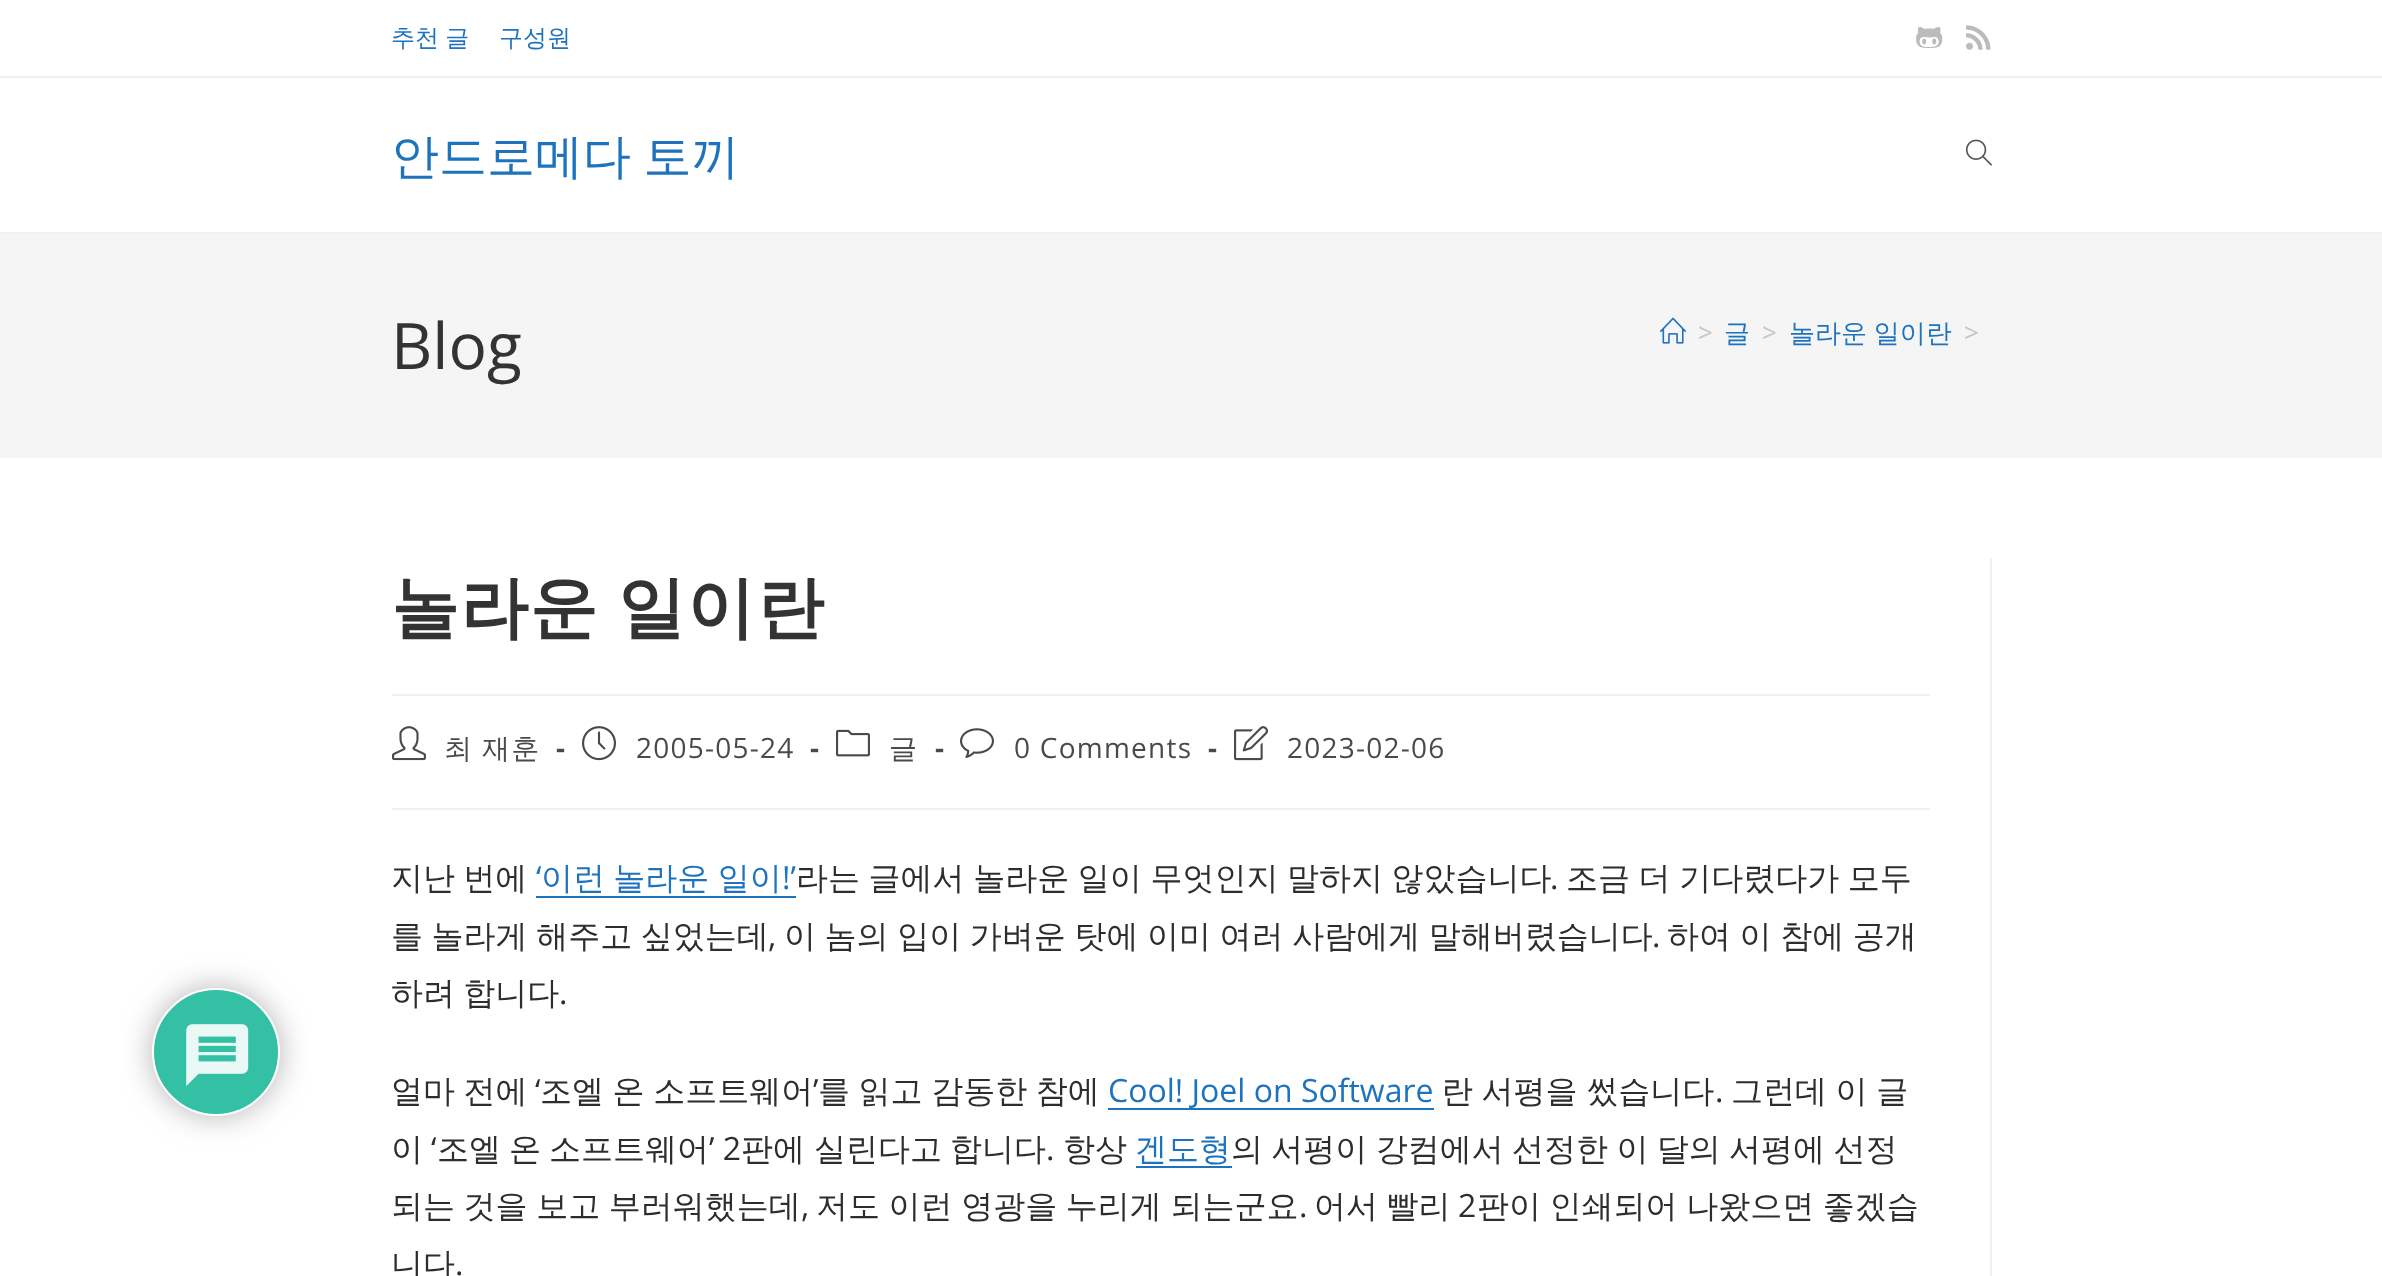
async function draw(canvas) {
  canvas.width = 2382
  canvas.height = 1276
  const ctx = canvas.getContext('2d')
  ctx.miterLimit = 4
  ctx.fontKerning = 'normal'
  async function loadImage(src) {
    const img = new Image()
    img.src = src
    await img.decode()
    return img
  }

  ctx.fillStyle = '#fff'
  ctx.fillRect(0, 0, 2382, 1276)
  ctx.fillStyle = '#b3b3b3'
  ctx.filter = 'blur(15px)'
  ctx.beginPath()
  ctx.roundRect(152, 988, 128, 128, 64)
  ctx.fill()
  ctx.filter = 'none'
  ctx.fillStyle = '#34c0a4'
  ctx.beginPath()
  ctx.arc(216, 1052, 63, 0, 2 * Math.PI)
  ctx.fill()
  ctx.strokeStyle = '#fff'
  ctx.lineWidth = 2
  ctx.stroke()
  ctx.drawImage(await loadImage('image0.png'), 186, 1024, 63, 62)
  ctx.fillStyle = '#f1f1f1'
  ctx.fillRect(0, 76, 2382, 2)
  ctx.wordSpacing = '-1px'
  ctx.font = '500 24px WenQuanYi Zen Hei'
  ctx.fillStyle = '#1e73be'
  ctx.fillText('추천 글', 391, 46)
  ctx.wordSpacing = '0px'
  ctx.fillText('구성원', 499, 46)
  ctx.drawImage(await loadImage('image1.png'), 1916, 27, 27, 21)
  ctx.drawImage(await loadImage('image2.png'), 1966, 25, 25, 25)
  ctx.fillStyle = '#f1f1f1'
  ctx.fillRect(0, 232, 2382, 2)
  ctx.wordSpacing = '-2px'
  ctx.font = '500 48px WenQuanYi Zen Hei'
  ctx.fillStyle = '#1e73be'
  ctx.fillText('안드로메다 토끼', 391, 173)
  ctx.drawImage(await loadImage('image3.png'), 1965, 139, 27, 27)
  ctx.fillStyle = '#f5f5f5'
  ctx.fillRect(0, 234, 2382, 224)
  ctx.wordSpacing = '0px'
  ctx.font = '64px Open Sans'
  ctx.fillStyle = '#333'
  ctx.fillText('Blog', 391, 369)
  ctx.drawImage(await loadImage('image4.png'), 1660, 317, 26, 27)
  ctx.font = '26px Open Sans'
  ctx.fillStyle = '#c6c6c6'
  ctx.fillText('>', 1698, 342)
  ctx.font = '500 26px WenQuanYi Zen Hei'
  ctx.fillStyle = '#1e73be'
  ctx.fillText('글', 1724, 342)
  ctx.font = '26px Open Sans'
  ctx.fillStyle = '#c6c6c6'
  ctx.fillText('>', 1762, 342)
  ctx.wordSpacing = '-1px'
  ctx.font = '500 26px WenQuanYi Zen Hei'
  ctx.fillStyle = '#1e73be'
  ctx.fillText('놀라운 일이란', 1789, 342)
  ctx.wordSpacing = '0px'
  ctx.font = '26px Open Sans'
  ctx.fillStyle = '#c6c6c6'
  ctx.fillText('>', 1964, 342)
  ctx.fillStyle = '#f1f1f1'
  ctx.fillRect(1990, 558, 2, 718)
  ctx.fillRect(392, 694, 1538, 2)
  ctx.letterSpacing = '1.25px'
  ctx.wordSpacing = '-3px'
  ctx.font = 'bold 68px WenQuanYi Zen Hei'
  ctx.fillStyle = '#333'
  ctx.fillText('놀라운 일이란', 391, 631)
  ctx.fillStyle = '#f1f1f1'
  ctx.fillRect(392, 808, 1538, 2)
  ctx.drawImage(await loadImage('image5.png'), 392, 726, 34, 35)
  ctx.wordSpacing = '-1px'
  ctx.font = '500 28px WenQuanYi Zen Hei'
  ctx.fillStyle = '#4a4a4a'
  ctx.fillText('최 재훈', 444, 758)
  ctx.wordSpacing = '0px'
  ctx.font = 'bold 28px Open Sans'
  ctx.fillText('-', 556, 758)
  ctx.drawImage(await loadImage('image6.png'), 582, 726, 34, 35)
  ctx.font = '28px Open Sans'
  ctx.fillText('2005-05-24', 636, 758)
  ctx.font = 'bold 28px Open Sans'
  ctx.fillText('-', 810, 758)
  ctx.drawImage(await loadImage('image7.png'), 836, 729, 34, 28)
  ctx.font = '500 28px WenQuanYi Zen Hei'
  ctx.fillText('글', 889, 758)
  ctx.font = 'bold 28px Open Sans'
  ctx.fillText('-', 935, 758)
  ctx.drawImage(await loadImage('image8.png'), 960, 728, 34, 30)
  ctx.font = '28px Open Sans'
  ctx.fillText('0 Comments', 1014, 758)
  ctx.font = 'bold 28px Open Sans'
  ctx.fillText('-', 1208, 758)
  ctx.drawImage(await loadImage('image9.png'), 1234, 726, 35, 35)
  ctx.font = '28px Open Sans'
  ctx.fillText('2023-02-06', 1287, 758)
  ctx.letterSpacing = '0px'
  ctx.wordSpacing = '-1.25px'
  ctx.font = '500 32px WenQuanYi Zen Hei'
  ctx.fillStyle = '#2d2d2d'
  ctx.fillText('지난 번에', 391, 889)
  ctx.wordSpacing = '0px'
  ctx.font = '32px Open Sans'
  ctx.fillStyle = '#1e73be'
  ctx.fillText('‘', 536, 889)
  ctx.wordSpacing = '-1.25px'
  ctx.font = '500 32px WenQuanYi Zen Hei'
  ctx.fillText('이런 놀라운 일이', 541, 889)
  ctx.fillRect(536, 896, 260, 2)
  ctx.wordSpacing = '0px'
  ctx.font = '32px Open Sans'
  ctx.fillText('!’', 782, 889)
  ctx.wordSpacing = '-1px'
  ctx.font = '500 32px WenQuanYi Zen Hei'
  ctx.fillStyle = '#2d2d2d'
  ctx.fillText('라는 글에서 놀라운 일이 무엇인지 말하지 않았습니다', 796, 889)
  ctx.wordSpacing = '0px'
  ctx.font = '32px Open Sans'
  ctx.fillText('.', 1550, 889)
  ctx.wordSpacing = '-1px'
  ctx.font = '500 32px WenQuanYi Zen Hei'
  ctx.fillText('조금 더 기다렸다가 모두', 1566, 889)
  ctx.fillText('를 놀라게 해주고 싶었는데', 391, 947)
  ctx.wordSpacing = '0px'
  ctx.font = '32px Open Sans'
  ctx.fillText(',', 768, 947)
  ctx.wordSpacing = '-1px'
  ctx.font = '500 32px WenQuanYi Zen Hei'
  ctx.fillText('이 놈의 입이 가벼운 탓에 이미 여러 사람에게 말해버렸습니다', 784, 947)
  ctx.wordSpacing = '0px'
  ctx.font = '32px Open Sans'
  ctx.fillText('.', 1652, 947)
  ctx.wordSpacing = '-1px'
  ctx.font = '500 32px WenQuanYi Zen Hei'
  ctx.fillText('하여 이 참에 공개', 1667, 947)
  ctx.wordSpacing = '-1.25px'
  ctx.fillText('하려 합니다', 391, 1004)
  ctx.wordSpacing = '0px'
  ctx.font = '32px Open Sans'
  ctx.fillText('.', 559, 1004)
  ctx.wordSpacing = '-1px'
  ctx.font = '500 32px WenQuanYi Zen Hei'
  ctx.fillText('얼마 전에', 391, 1102)
  ctx.wordSpacing = '0px'
  ctx.font = '32px Open Sans'
  ctx.fillText('‘', 535, 1102)
  ctx.wordSpacing = '-1px'
  ctx.font = '500 32px WenQuanYi Zen Hei'
  ctx.fillText('조엘 온 소프트웨어', 540, 1102)
  ctx.wordSpacing = '0px'
  ctx.font = '32px Open Sans'
  ctx.fillText('’', 813, 1102)
  ctx.wordSpacing = '-1px'
  ctx.font = '500 32px WenQuanYi Zen Hei'
  ctx.fillText('를 읽고 감동한 참에', 818, 1102)
  ctx.wordSpacing = '0px'
  ctx.font = '32px Open Sans'
  ctx.fillStyle = '#1e73be'
  ctx.fillText('Cool! Joel on Software', 1108, 1102)
  ctx.fillRect(1108, 1108, 326, 2)
  ctx.wordSpacing = '-1px'
  ctx.font = '500 32px WenQuanYi Zen Hei'
  ctx.fillStyle = '#2d2d2d'
  ctx.fillText('란 서평을 썼습니다', 1441, 1102)
  ctx.fillText('그런데 이 글', 1731, 1102)
  ctx.wordSpacing = '0px'
  ctx.font = '32px Open Sans'
  ctx.fillText('.', 1715, 1102)
  ctx.font = '500 32px WenQuanYi Zen Hei'
  ctx.fillText('이', 391, 1160)
  ctx.font = '32px Open Sans'
  ctx.fillText('‘', 431, 1160)
  ctx.font = '500 32px WenQuanYi Zen Hei'
  ctx.fillText('조엘', 437, 1160)
  ctx.fillText('온', 509, 1160)
  ctx.fillText('소프트웨어', 549, 1160)
  ctx.font = '32px Open Sans'
  ctx.fillText('’ 2', 709, 1160)
  ctx.font = '500 32px WenQuanYi Zen Hei'
  ctx.fillText('판에', 741, 1160)
  ctx.fillText('실린다고', 814, 1160)
  ctx.fillText('합니다', 950, 1160)
  ctx.fillText('항상', 1063, 1160)
  ctx.fillStyle = '#1e73be'
  ctx.fillText('겐도형', 1135, 1160)
  ctx.fillRect(1136, 1166, 96, 2)
  ctx.wordSpacing = '-1.25px'
  ctx.fillStyle = '#2d2d2d'
  ctx.fillText('의 서평이 강컴에서 선정한 이 달의 서평에 선정', 1231, 1160)
  ctx.wordSpacing = '0px'
  ctx.font = '32px Open Sans'
  ctx.fillText('.', 1046, 1160)
  ctx.wordSpacing = '-1px'
  ctx.font = '500 32px WenQuanYi Zen Hei'
  ctx.fillText('되는 것을 보고 부러워했는데', 391, 1217)
  ctx.wordSpacing = '0px'
  ctx.font = '32px Open Sans'
  ctx.fillText(',', 801, 1217)
  ctx.wordSpacing = '-1px'
  ctx.font = '500 32px WenQuanYi Zen Hei'
  ctx.fillText('저도 이런 영광을 누리게 되는군요', 816, 1217)
  ctx.wordSpacing = '0px'
  ctx.font = '32px Open Sans'
  ctx.fillText('.', 1299, 1217)
  ctx.wordSpacing = '-1px'
  ctx.font = '500 32px WenQuanYi Zen Hei'
  ctx.fillText('어서 빨리', 1314, 1217)
  ctx.wordSpacing = '0px'
  ctx.font = '32px Open Sans'
  ctx.fillText('2', 1458, 1217)
  ctx.wordSpacing = '-1px'
  ctx.font = '500 32px WenQuanYi Zen Hei'
  ctx.fillText('판이 인쇄되어 나왔으면 좋겠습', 1477, 1217)
  ctx.wordSpacing = '0px'
  ctx.fillText('니다', 391, 1275)
  ctx.font = '32px Open Sans'
  ctx.fillText('.', 455, 1275)
}

draw(document.querySelector('canvas'))
